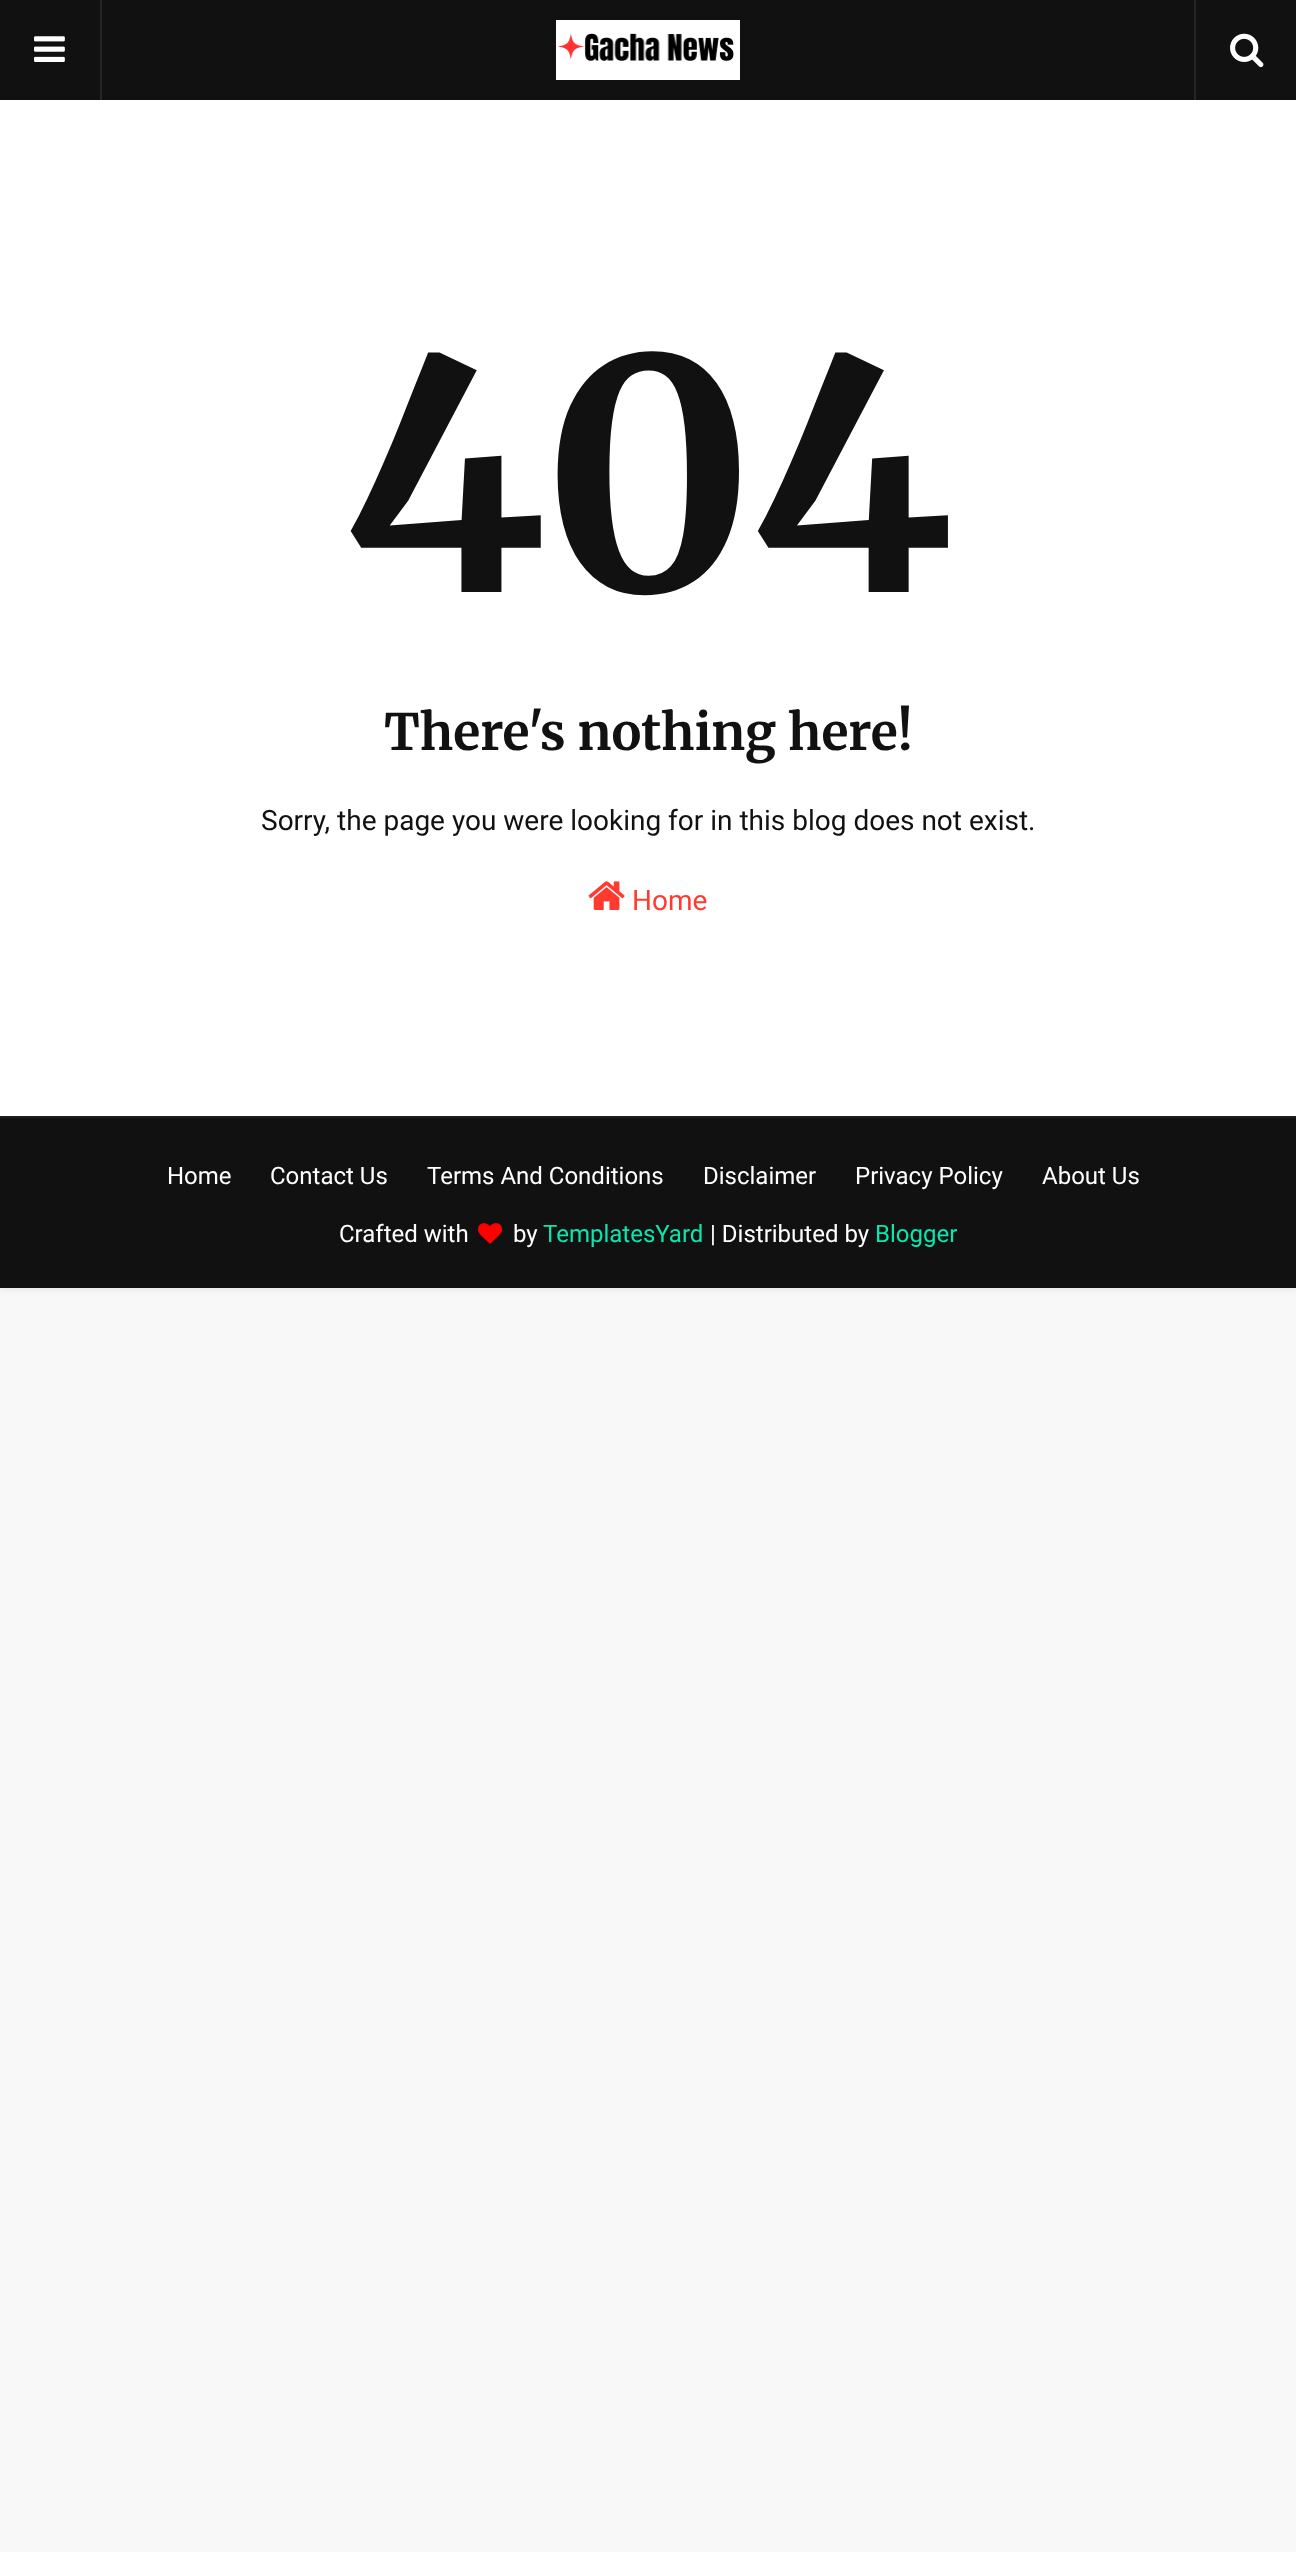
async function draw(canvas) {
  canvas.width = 1296
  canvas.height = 2552
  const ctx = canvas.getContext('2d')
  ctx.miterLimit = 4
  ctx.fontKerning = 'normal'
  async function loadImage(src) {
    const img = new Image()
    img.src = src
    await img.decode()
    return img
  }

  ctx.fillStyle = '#f8f8f8'
  ctx.fillRect(0, 0, 1296, 2552)
  ctx.fillStyle = '#0000001a'
  ctx.filter = 'blur(5px)'
  ctx.beginPath()
  ctx.rect(0, 0, 1296, 1288)
  ctx.fill()
  ctx.filter = 'none'
  ctx.fillStyle = '#fff'
  ctx.fillRect(0, 100, 1296, 1016)
  ctx.fillStyle = '#111'
  ctx.fillRect(0, 0, 1296, 100)
  ctx.fillStyle = '#242424'
  ctx.fillRect(100, 0, 2, 100)
  ctx.drawImage(await loadImage('image0.png'), 34, 36, 31, 26)
  ctx.drawImage(await loadImage('image1.png'), 556, 20, 184, 60)
  ctx.fillRect(1194, 0, 2, 100)
  ctx.drawImage(await loadImage('image2.png'), 1230, 33, 34, 35)
  ctx.font = 'bold 320px Merriweather'
  ctx.fillStyle = '#111'
  ctx.fillText('404', 343, 592)
  ctx.font = 'bold 50px Merriweather'
  ctx.fillText('There\'s nothing here!', 384, 750)
  ctx.font = '28px Roboto'
  ctx.fillText('Sorry, the page you were looking for in this blog does not exist.', 261, 830)
  ctx.drawImage(await loadImage('image3.png'), 588, 881, 37, 29)
  ctx.fillStyle = '#ff3b30'
  ctx.fillText('Home', 632, 910)
  ctx.fillStyle = '#111'
  ctx.fillRect(0, 1118, 1296, 170)
  ctx.fillStyle = '#1d1d1d'
  ctx.fillRect(0, 1116, 1296, 2)
  ctx.font = '24px Roboto'
  ctx.fillStyle = '#fff'
  ctx.fillText('Home', 167, 1184)
  ctx.fillText('Contact Us', 270, 1184)
  ctx.fillText('Terms And Conditions', 427, 1184)
  ctx.fillText('Disclaimer', 703, 1184)
  ctx.fillText('Privacy Policy', 855, 1184)
  ctx.fillText('About Us', 1042, 1184)
  ctx.fillText('Crafted with', 339, 1242)
  ctx.drawImage(await loadImage('image4.png'), 478, 1223, 24, 21)
  ctx.fillText('by', 513, 1242)
  ctx.fillStyle = '#0be6af'
  ctx.fillText('TemplatesYard', 543, 1242)
  ctx.fillStyle = '#fff'
  ctx.fillText('| Distributed by', 710, 1242)
  ctx.fillStyle = '#0be6af'
  ctx.fillText('Blogger', 875, 1242)
}

draw(document.querySelector('canvas'))
